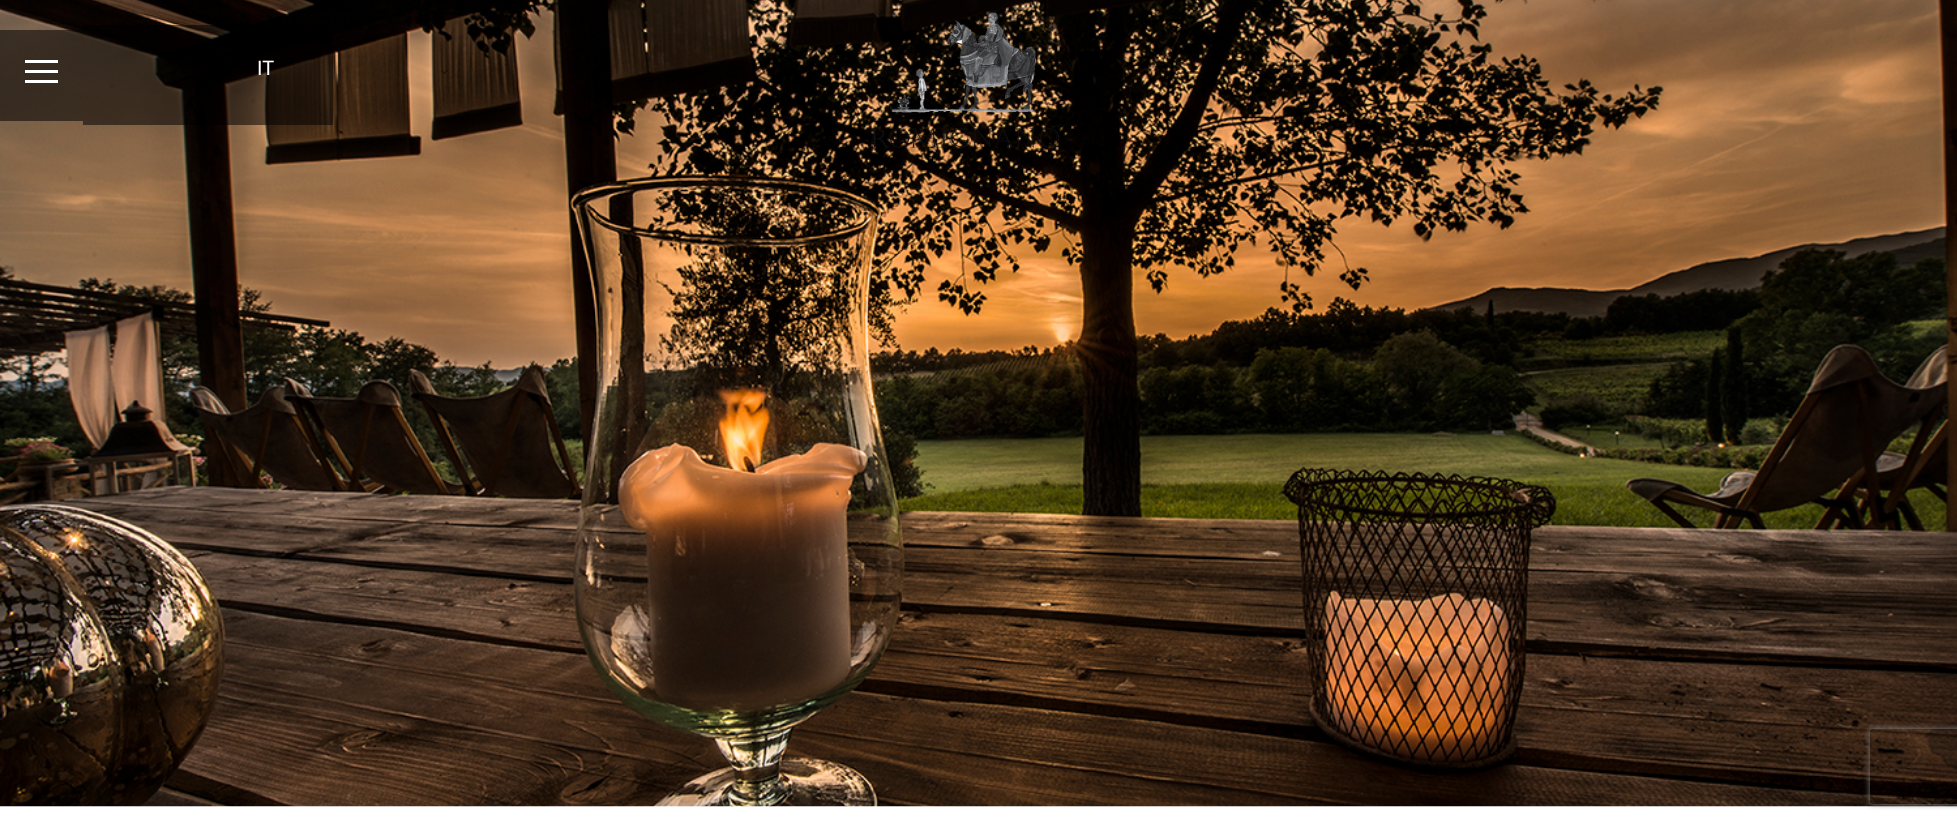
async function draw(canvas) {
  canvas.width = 1957
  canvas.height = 821
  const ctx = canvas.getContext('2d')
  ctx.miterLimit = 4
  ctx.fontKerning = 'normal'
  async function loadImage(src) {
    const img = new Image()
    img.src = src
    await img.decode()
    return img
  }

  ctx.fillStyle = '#fff'
  ctx.fillRect(0, 0, 1957, 821)
  ctx.drawImage(await loadImage('image0.png'), 0, 0, 1957, 807)
  ctx.fillStyle = '#00000087'
  ctx.fillRect(0, 30, 83, 91)
  ctx.fillStyle = '#fff'
  ctx.fillRect(25, 60, 33, 3)
  ctx.fillRect(25, 70, 33, 3)
  ctx.fillRect(25, 80, 33, 3)
  ctx.fillStyle = '#00000087'
  ctx.fillRect(83, 25, 250, 100)
  ctx.drawImage(await loadImage('image1.png'), 441, 70, 7, 4)
  ctx.font = '20px Roboto'
  ctx.fillStyle = '#fff'
  ctx.fillText('IT', 257, 75)
  ctx.drawImage(await loadImage('image2.png'), 870, 12, 190, 137)
  ctx.save()
  ctx.beginPath()
  ctx.moveTo(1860, 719)
  ctx.lineTo(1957, 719)
  ctx.lineTo(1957, 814)
  ctx.lineTo(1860, 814)
  ctx.closePath()
  ctx.moveTo(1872.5, 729)
  ctx.lineTo(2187.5, 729)
  ctx.bezierCurveTo(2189, 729, 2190, 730, 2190, 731.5)
  ctx.lineTo(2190, 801.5)
  ctx.bezierCurveTo(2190, 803, 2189, 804, 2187.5, 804)
  ctx.lineTo(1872.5, 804)
  ctx.bezierCurveTo(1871, 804, 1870, 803, 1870, 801.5)
  ctx.lineTo(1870, 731.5)
  ctx.bezierCurveTo(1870, 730, 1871, 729, 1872.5, 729)
  ctx.closePath()
  ctx.clip('evenodd')
  ctx.fillStyle = '#808080'
  ctx.filter = 'blur(3px)'
  ctx.beginPath()
  ctx.roundRect(1870, 729, 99, 75, 2.5)
  ctx.fill()
  ctx.filter = 'none'
  ctx.restore()
}

draw(document.querySelector('canvas'))
